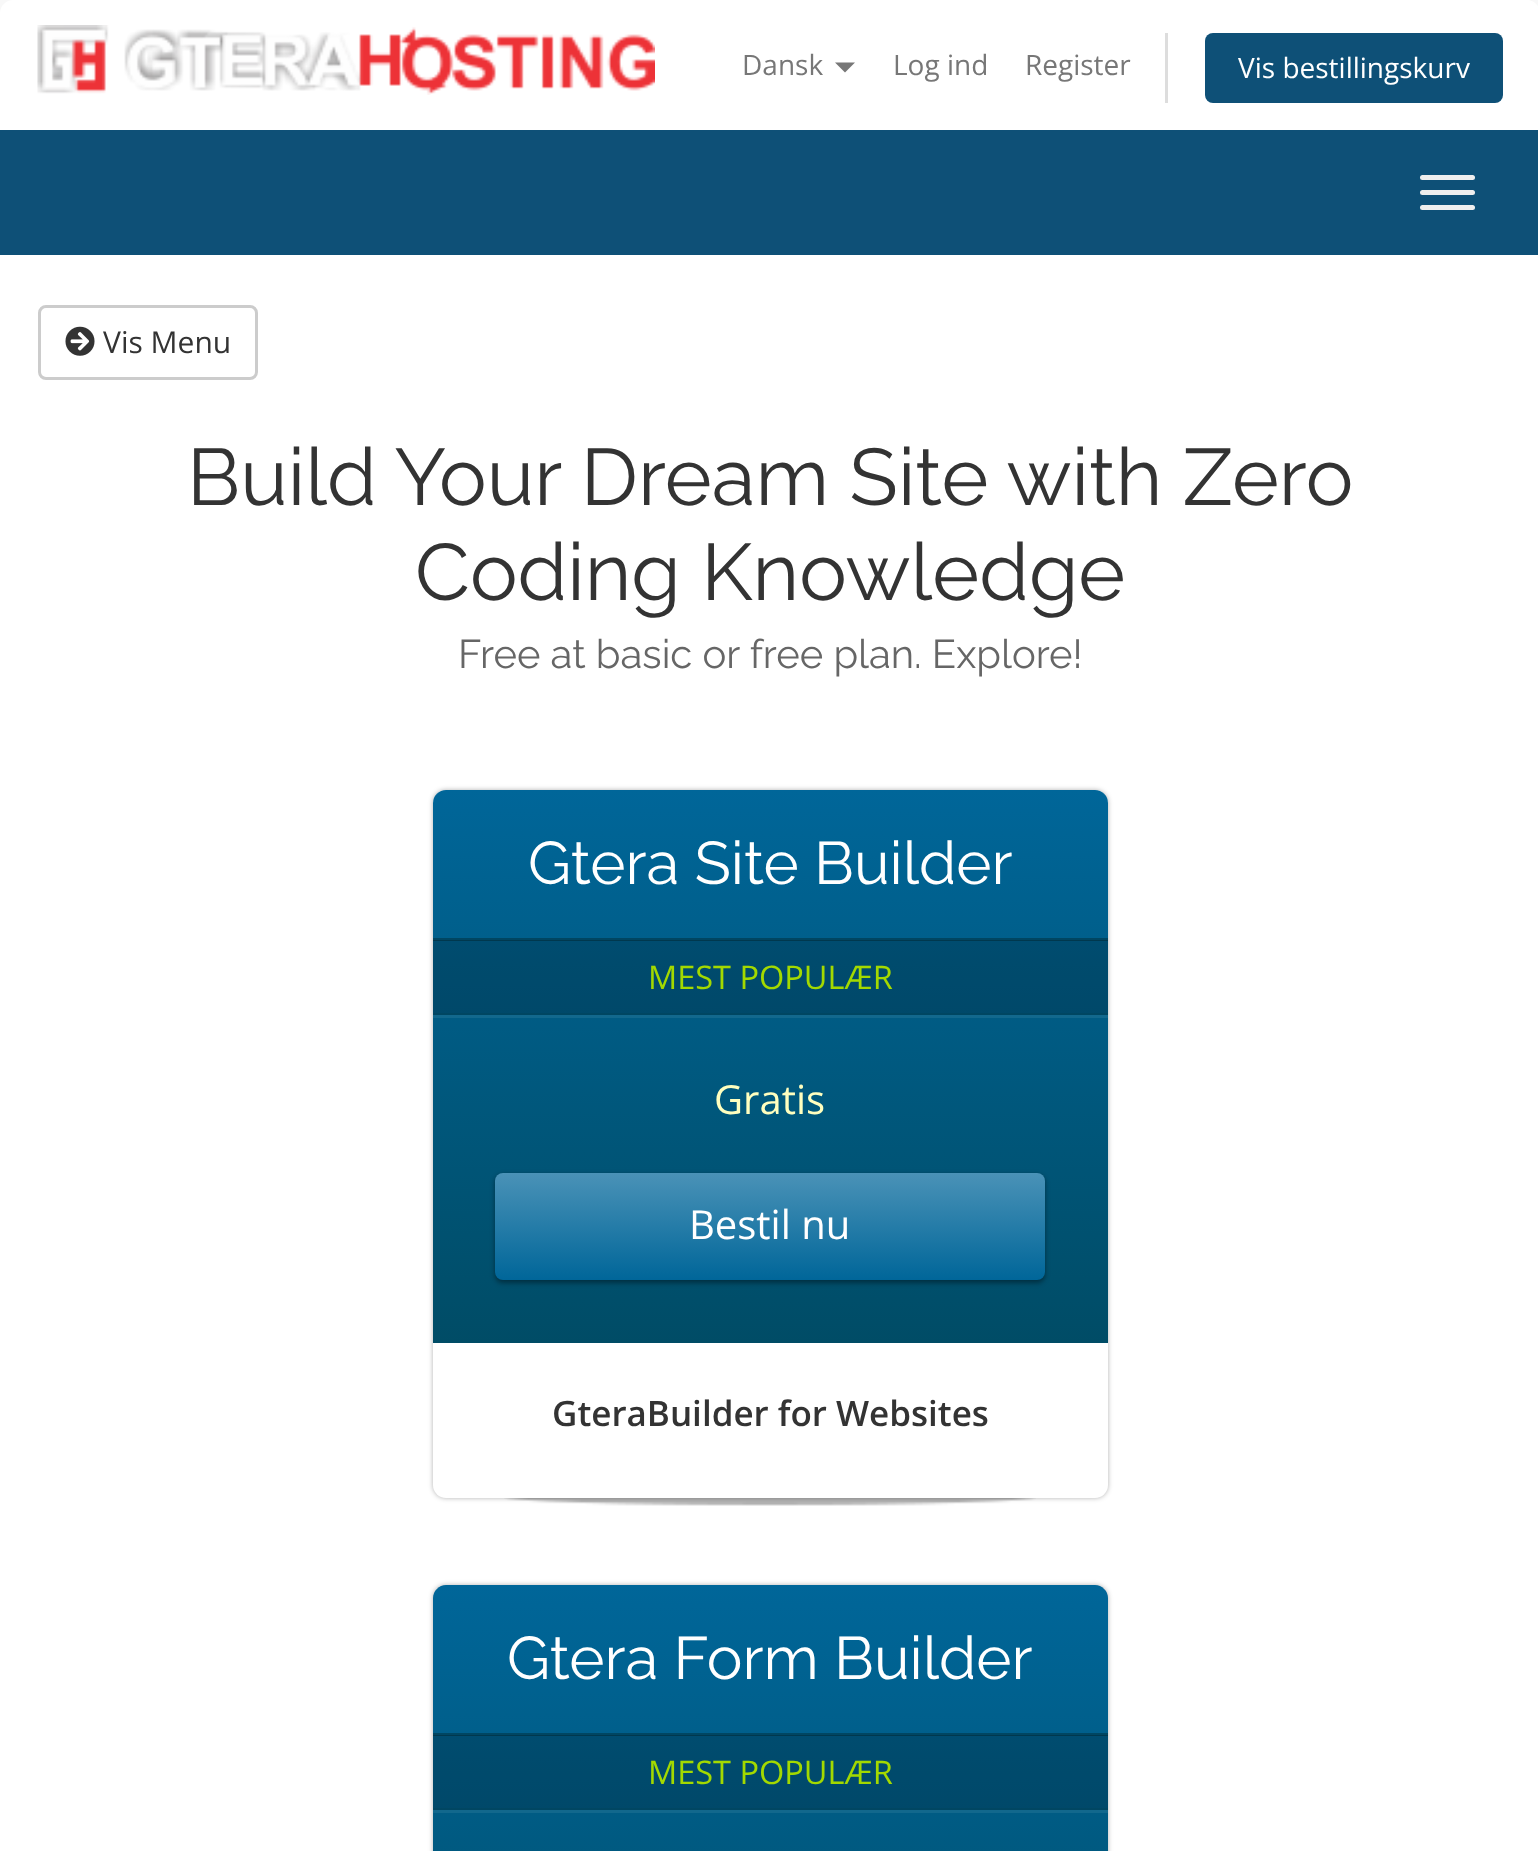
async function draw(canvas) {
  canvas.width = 1538
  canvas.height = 1851
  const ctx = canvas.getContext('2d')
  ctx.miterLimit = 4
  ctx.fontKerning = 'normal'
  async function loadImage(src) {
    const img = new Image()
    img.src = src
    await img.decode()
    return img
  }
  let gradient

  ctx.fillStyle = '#f8f8f8'
  ctx.fillRect(0, 0, 1538, 1851)
  ctx.fillStyle = '#fff'
  ctx.beginPath()
  ctx.moveTo(13, 0)
  ctx.lineTo(1527, 0)
  ctx.bezierCurveTo(1534, 0, 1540, 6, 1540, 13)
  ctx.lineTo(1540, 130)
  ctx.lineTo(0, 130)
  ctx.lineTo(0, 13)
  ctx.bezierCurveTo(0, 6, 6, 0, 13, 0)
  ctx.closePath()
  ctx.fill()
  ctx.drawImage(await loadImage('image0.png'), 37, 25, 618, 70)
  ctx.font = '28px Open Sans'
  ctx.fillStyle = '#777'
  ctx.fillText('Dansk', 742, 75)
  ctx.beginPath()
  ctx.moveTo(835, 62.5)
  ctx.lineTo(855, 62.5)
  ctx.lineTo(845, 72.5)
  ctx.closePath()
  ctx.fill()
  ctx.fillText('Log ind', 893, 75)
  ctx.fillText('Register', 1025, 75)
  ctx.fillStyle = '#ddd'
  ctx.fillRect(1165, 33, 3, 70)
  ctx.fillStyle = '#0e5077'
  ctx.beginPath()
  ctx.roundRect(1205, 33, 298, 70, 8)
  ctx.fill()
  ctx.fillStyle = '#fff'
  ctx.fillText('Vis bestillingskurv', 1238, 78)
  ctx.fillStyle = '#0e5077'
  ctx.fillRect(0, 130, 1538, 125)
  ctx.fillStyle = '#eee'
  ctx.beginPath()
  ctx.roundRect(1420, 175, 55, 5, 2.5)
  ctx.fill()
  ctx.beginPath()
  ctx.roundRect(1420, 190, 55, 5, 2.5)
  ctx.fill()
  ctx.beginPath()
  ctx.roundRect(1420, 205, 55, 5, 2.5)
  ctx.fill()
  ctx.fillStyle = '#fff'
  ctx.fillRect(0, 255, 1538, 1596)
  ctx.beginPath()
  ctx.roundRect(39.5, 306.5, 217, 72, 6.5)
  ctx.strokeStyle = '#ccc'
  ctx.lineWidth = 3
  ctx.stroke()
  ctx.drawImage(await loadImage('image1.png'), 65, 326, 30, 30)
  ctx.font = '30px Open Sans'
  ctx.fillStyle = '#333'
  ctx.fillText('Vis Menu', 103, 353)
  ctx.font = '80px Raleway'
  ctx.fillText('Build Your Dream Site with Zero', 187, 505)
  ctx.fillText('Coding Knowledge', 415, 600)
  ctx.font = '40px Raleway'
  ctx.fillStyle = '#666'
  ctx.fillText('Free at basic or free plan. Explore!', 458, 668)
  ctx.drawImage(await loadImage('image2.png'), 504, 1498, 532, 8)
  ctx.fillStyle = '#0000004d'
  ctx.filter = 'blur(2.5px)'
  ctx.beginPath()
  ctx.roundRect(433, 790, 675, 708, 13)
  ctx.fill()
  ctx.filter = 'none'
  ctx.fillStyle = '#fff'
  ctx.beginPath()
  ctx.roundRect(433, 790, 675, 708, 13)
  ctx.fill()
  gradient = ctx.createLinearGradient(770, 790, 770, 1343)
  gradient.addColorStop(0, '#069')
  gradient.addColorStop(1, '#004c66')
  ctx.fillStyle = gradient
  ctx.beginPath()
  ctx.roundRect(433, 790, 675, 553, [13, 13, 0, 0])
  ctx.fill()
  ctx.fillStyle = '#004662'
  ctx.fillRect(433, 938, 675, 3)
  ctx.font = '60px Raleway'
  ctx.fillStyle = '#fff'
  ctx.fillText('Gtera Site Builder', 528, 884)
  ctx.fillStyle = '#00000033'
  ctx.fillRect(433, 940, 675, 73)
  ctx.fillStyle = '#004662'
  ctx.fillRect(433, 1013, 675, 2)
  ctx.font = '32.5px Open Sans'
  ctx.fillStyle = '#a3d900'
  ctx.fillText('MEST POPULÆR', 648, 989)
  ctx.fillStyle = '#12688d'
  ctx.fillRect(433, 1015, 675, 3)
  ctx.font = '40px Open Sans'
  ctx.fillStyle = '#ffffbf'
  ctx.fillText('Gratis', 714, 1114)
  ctx.fillStyle = '#00000066'
  ctx.filter = 'blur(2.5px)'
  ctx.beginPath()
  ctx.roundRect(495, 1175, 550, 108, 8)
  ctx.fill()
  ctx.filter = 'none'
  gradient = ctx.createLinearGradient(770, 1173, 770, 1280)
  gradient.addColorStop(0, '#4a92b7')
  gradient.addColorStop(1, '#069')
  ctx.fillStyle = gradient
  ctx.beginPath()
  ctx.roundRect(495, 1173, 550, 107, 8)
  ctx.fill()
  ctx.fillStyle = '#fff'
  ctx.fillText('Bestil nu', 689, 1239)
  ctx.font = '600 35px Open Sans'
  ctx.fillStyle = '#333'
  ctx.fillText('GteraBuilder for Websites', 552, 1426)
  ctx.fillStyle = '#0000004d'
  ctx.filter = 'blur(2.5px)'
  ctx.beginPath()
  ctx.roundRect(433, 1585, 675, 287, 13)
  ctx.fill()
  ctx.filter = 'none'
  gradient = ctx.createLinearGradient(770, 1585, 770, 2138)
  gradient.addColorStop(0, '#069')
  gradient.addColorStop(1, '#004c66')
  ctx.fillStyle = gradient
  ctx.beginPath()
  ctx.moveTo(446, 1585)
  ctx.lineTo(1095, 1585)
  ctx.bezierCurveTo(1102, 1585, 1108, 1591, 1108, 1598)
  ctx.lineTo(1108, 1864)
  ctx.lineTo(433, 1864)
  ctx.lineTo(433, 1598)
  ctx.bezierCurveTo(433, 1591, 439, 1585, 446, 1585)
  ctx.closePath()
  ctx.fill()
  ctx.fillStyle = '#004662'
  ctx.fillRect(433, 1733, 675, 3)
  ctx.font = '60px Raleway'
  ctx.fillStyle = '#fff'
  ctx.fillText('Gtera Form Builder', 507, 1679)
  ctx.fillStyle = '#00000033'
  ctx.fillRect(433, 1735, 675, 73)
  ctx.fillStyle = '#004662'
  ctx.fillRect(433, 1808, 675, 2)
  ctx.font = '32.5px Open Sans'
  ctx.fillStyle = '#a3d900'
  ctx.fillText('MEST POPULÆR', 648, 1784)
  ctx.fillStyle = '#12688d'
  ctx.fillRect(433, 1810, 675, 3)
}

draw(document.querySelector('canvas'))
